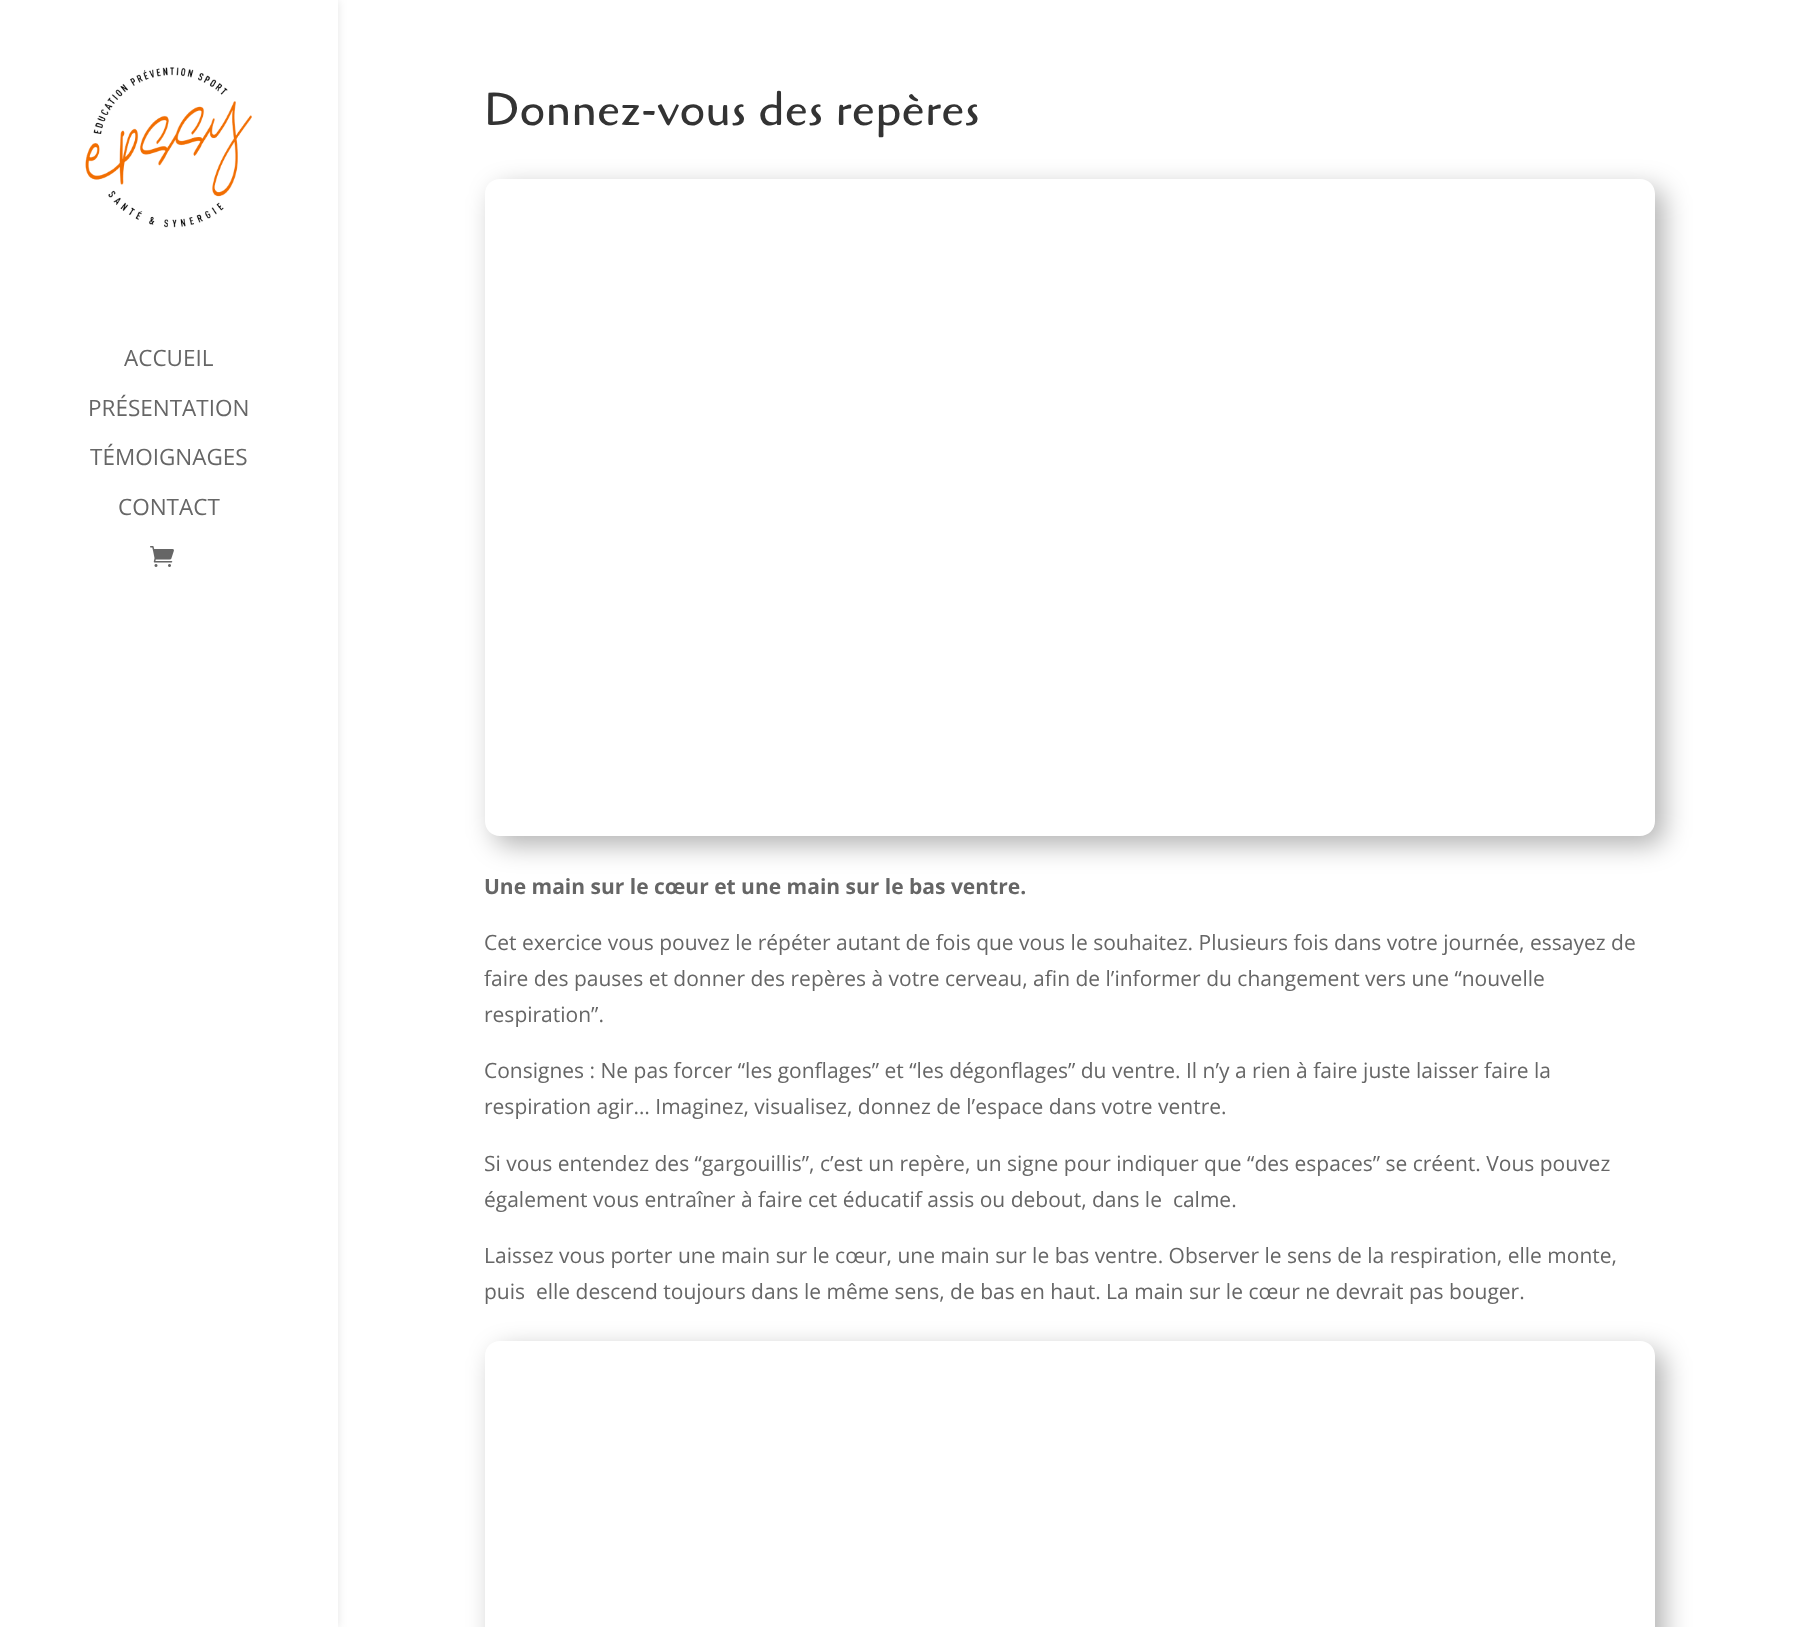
async function draw(canvas) {
  canvas.width = 1800
  canvas.height = 1627
  const ctx = canvas.getContext('2d')
  ctx.miterLimit = 4
  ctx.fontKerning = 'normal'
  async function loadImage(src) {
    const img = new Image()
    img.src = src
    await img.decode()
    return img
  }

  ctx.fillStyle = '#fff'
  ctx.fillRect(0, 0, 1800, 1627)
  ctx.fillStyle = '#0000001a'
  ctx.filter = 'blur(5px)'
  ctx.beginPath()
  ctx.rect(0, 0, 338, 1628)
  ctx.fill()
  ctx.filter = 'none'
  ctx.fillStyle = '#fff'
  ctx.fillRect(0, 0, 338, 1627)
  ctx.drawImage(await loadImage('image0.png'), 85, 67, 167, 161)
  ctx.font = '22.5px Open Sans'
  ctx.fillStyle = '#666'
  ctx.fillText('ACCUEIL', 124, 366)
  ctx.fillText('PRÉSENTATION', 88, 416)
  ctx.fillText('TÉMOIGNAGES', 90, 465)
  ctx.fillText('CONTACT', 118, 515)
  ctx.drawImage(await loadImage('image1.png'), 150, 546, 24, 21)
  ctx.font = '46.5px Cagliostro'
  ctx.fillStyle = '#333'
  ctx.fillText('Donnez-vous des repères', 484, 125)
  ctx.save()
  ctx.beginPath()
  ctx.moveTo(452, 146)
  ctx.lineTo(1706, 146)
  ctx.lineTo(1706, 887)
  ctx.lineTo(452, 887)
  ctx.closePath()
  ctx.moveTo(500, 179)
  ctx.lineTo(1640, 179)
  ctx.bezierCurveTo(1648.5, 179, 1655, 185.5, 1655, 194)
  ctx.lineTo(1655, 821)
  ctx.bezierCurveTo(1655, 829.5, 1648.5, 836, 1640, 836)
  ctx.lineTo(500, 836)
  ctx.bezierCurveTo(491.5, 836, 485, 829.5, 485, 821)
  ctx.lineTo(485, 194)
  ctx.bezierCurveTo(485, 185.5, 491.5, 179, 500, 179)
  ctx.closePath()
  ctx.clip('evenodd')
  ctx.fillStyle = '#0000004d'
  ctx.filter = 'blur(13.5px)'
  ctx.beginPath()
  ctx.roundRect(494, 188, 1170, 657, 15)
  ctx.fill()
  ctx.filter = 'none'
  ctx.restore()
  ctx.font = 'bold 21px Open Sans'
  ctx.fillStyle = '#666'
  ctx.fillText('Une main sur le cœur et une main sur le bas ventre.', 484, 894)
  ctx.font = '21px Open Sans'
  ctx.fillText('Cet exercice vous pouvez le répéter autant de fois que vous le souhaitez. Plusieurs fois dans votre journée, essayez de', 484, 950)
  ctx.fillText('faire des pauses et donner des repères à votre cerveau, afin de l’informer du changement vers une “nouvelle', 484, 986)
  ctx.fillText('respiration”.', 484, 1022)
  ctx.fillText('Consignes : Ne pas forcer “les gonflages” et “les dégonflages” du ventre. Il n’y a rien à faire juste laisser faire la', 484, 1078)
  ctx.fillText('respiration agir… Imaginez, visualisez, donnez de l’espace dans votre ventre.', 484, 1114)
  ctx.fillText('Si vous entendez des “gargouillis”, c’est un repère, un signe pour indiquer que “des espaces” se créent. Vous pouvez', 484, 1171)
  ctx.fillText('également vous entraîner à faire cet éducatif assis ou debout, dans le  calme.', 484, 1207)
  ctx.fillText('Laissez vous porter une main sur le cœur, une main sur le bas ventre. Observer le sens de la respiration, elle monte,', 484, 1263)
  ctx.fillText('puis  elle descend toujours dans le même sens, de bas en haut. La main sur le cœur ne devrait pas bouger.', 484, 1299)
  ctx.save()
  ctx.beginPath()
  ctx.moveTo(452, 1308)
  ctx.lineTo(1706, 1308)
  ctx.lineTo(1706, 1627)
  ctx.lineTo(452, 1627)
  ctx.closePath()
  ctx.moveTo(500, 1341)
  ctx.lineTo(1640, 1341)
  ctx.bezierCurveTo(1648.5, 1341, 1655, 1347.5, 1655, 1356)
  ctx.lineTo(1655, 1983)
  ctx.bezierCurveTo(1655, 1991.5, 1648.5, 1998, 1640, 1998)
  ctx.lineTo(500, 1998)
  ctx.bezierCurveTo(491.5, 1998, 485, 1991.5, 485, 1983)
  ctx.lineTo(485, 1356)
  ctx.bezierCurveTo(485, 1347.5, 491.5, 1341, 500, 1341)
  ctx.closePath()
  ctx.clip('evenodd')
  ctx.fillStyle = '#0000004d'
  ctx.filter = 'blur(13.5px)'
  ctx.beginPath()
  ctx.roundRect(494, 1350, 1170, 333, 15)
  ctx.fill()
  ctx.filter = 'none'
  ctx.restore()
}

draw(document.querySelector('canvas'))
